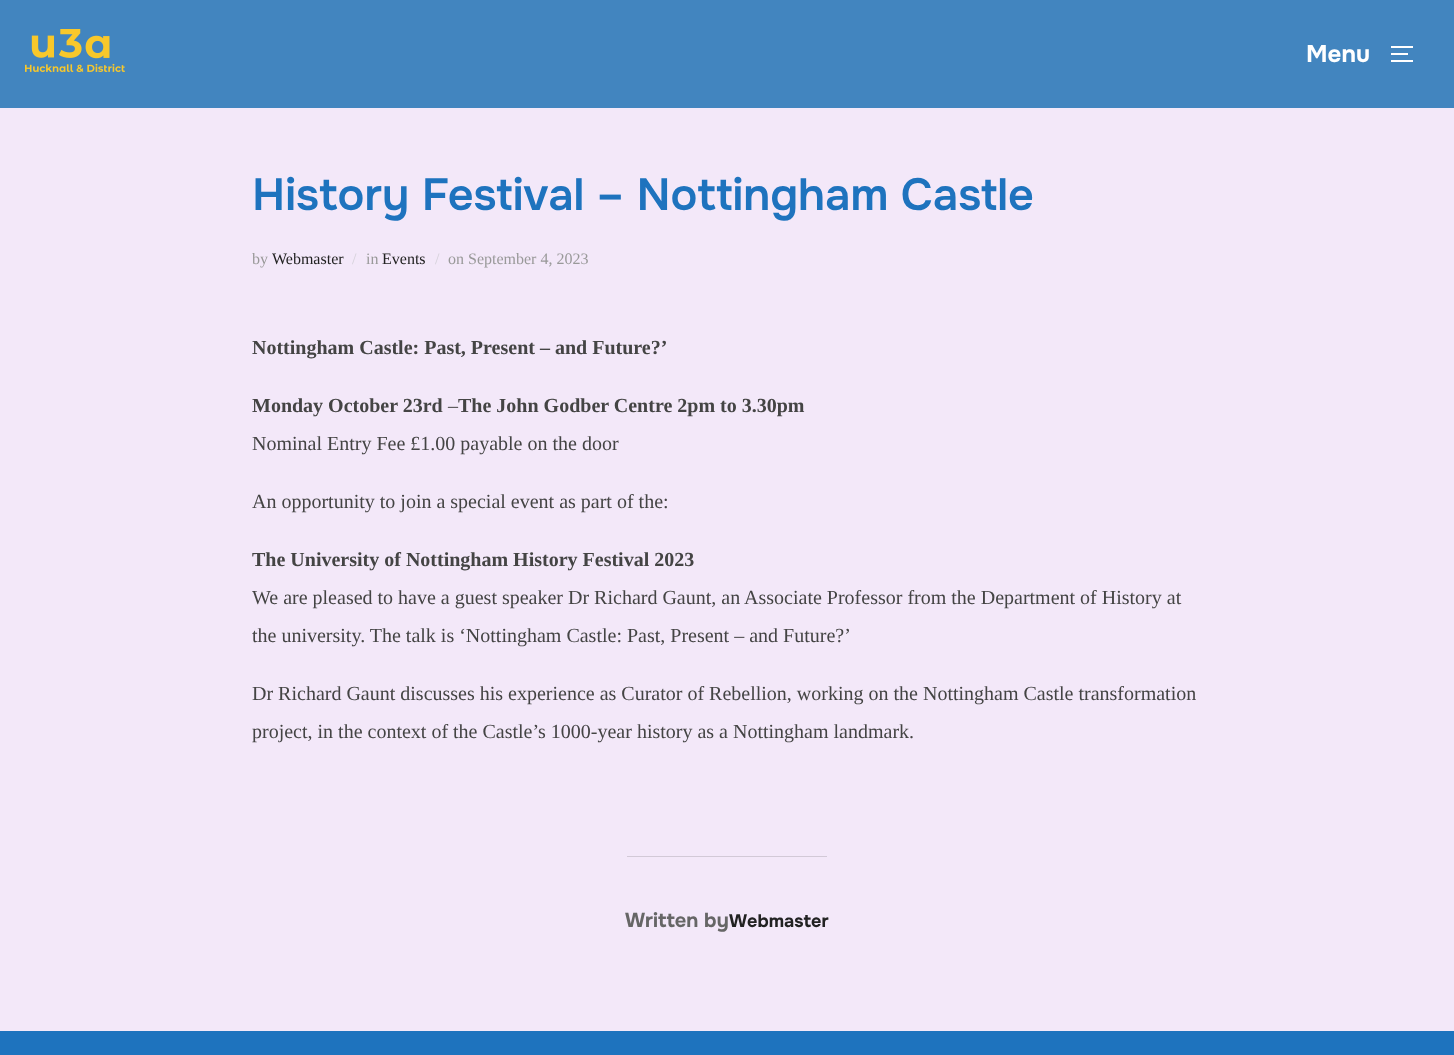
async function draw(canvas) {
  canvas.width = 1454
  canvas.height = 1055
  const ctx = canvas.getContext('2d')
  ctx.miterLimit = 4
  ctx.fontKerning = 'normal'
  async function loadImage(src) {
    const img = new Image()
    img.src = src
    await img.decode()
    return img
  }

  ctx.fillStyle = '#f3e8f9'
  ctx.fillRect(0, 0, 1454, 1055)
  ctx.fillStyle = '#4285bf'
  ctx.fillRect(0, 0, 1454, 108)
  ctx.drawImage(await loadImage('image0.png'), 25, 29, 100, 43)
  ctx.font = 'bold 24px Onest'
  ctx.fillStyle = '#fff'
  ctx.fillText('Menu', 1306, 62)
  ctx.fillRect(1391, 46, 22, 2)
  ctx.fillRect(1391, 53, 17, 2)
  ctx.fillRect(1391, 60, 22, 2)
  ctx.font = '600 45px Onest'
  ctx.fillStyle = '#1e73be'
  ctx.fillText('History Festival – Nottingham Castle', 252, 210)
  ctx.font = '16px Liberation Serif'
  ctx.fillStyle = '#999'
  ctx.fillText('by', 252, 264)
  ctx.fillStyle = '#222'
  ctx.fillText('Webmaster', 272, 264)
  ctx.fillStyle = '#d5d1da'
  ctx.fillText('/', 352, 264)
  ctx.fillStyle = '#999'
  ctx.fillText('in', 366, 264)
  ctx.fillStyle = '#222'
  ctx.fillText('Events', 382, 264)
  ctx.fillStyle = '#d5d1da'
  ctx.fillText('/', 435, 264)
  ctx.fillStyle = '#999'
  ctx.fillText('on September 4, 2023', 448, 264)
  ctx.font = 'bold 20px Liberation Serif'
  ctx.fillStyle = '#444'
  ctx.fillText('Nottingham Castle: Past, Present – and Future?’', 252, 354)
  ctx.fillText('Monday October 23rd', 252, 412)
  ctx.font = '20px Liberation Serif'
  ctx.fillText('–', 448, 412)
  ctx.font = 'bold 20px Liberation Serif'
  ctx.fillText('The John Godber Centre 2pm to 3.30pm', 458, 412)
  ctx.font = '20px Liberation Serif'
  ctx.fillText('Nominal Entry Fee £1.00 payable on the door', 252, 450)
  ctx.fillText('An opportunity to join a special event as part of the:', 252, 508)
  ctx.font = 'bold 20px Liberation Serif'
  ctx.fillText('The University of Nottingham History Festival 2023', 252, 566)
  ctx.font = '20px Liberation Serif'
  ctx.fillText('We are pleased to have a guest speaker Dr Richard Gaunt, an Associate Professor from the Department of History at', 252, 604)
  ctx.fillText('the university. The talk is ‘Nottingham Castle: Past, Present – and Future?’', 252, 642)
  ctx.fillText('Dr Richard Gaunt discusses his experience as Curator of Rebellion, working on the Nottingham Castle transformation', 252, 700)
  ctx.fillText('project, in the context of the Castle’s 1000-year history as a Nottingham landmark.', 252, 738)
  ctx.fillStyle = '#d2c9d7'
  ctx.fillRect(627, 856, 200, 1)
  ctx.font = 'bold 20px Onest'
  ctx.fillStyle = '#666'
  ctx.fillText('Written by', 625, 927)
  ctx.font = 'bold 18px Onest'
  ctx.fillStyle = '#222'
  ctx.fillText('Webmaster', 729, 927)
  ctx.fillStyle = '#1e73be'
  ctx.fillRect(0, 1031, 1454, 24)
}

draw(document.querySelector('canvas'))
